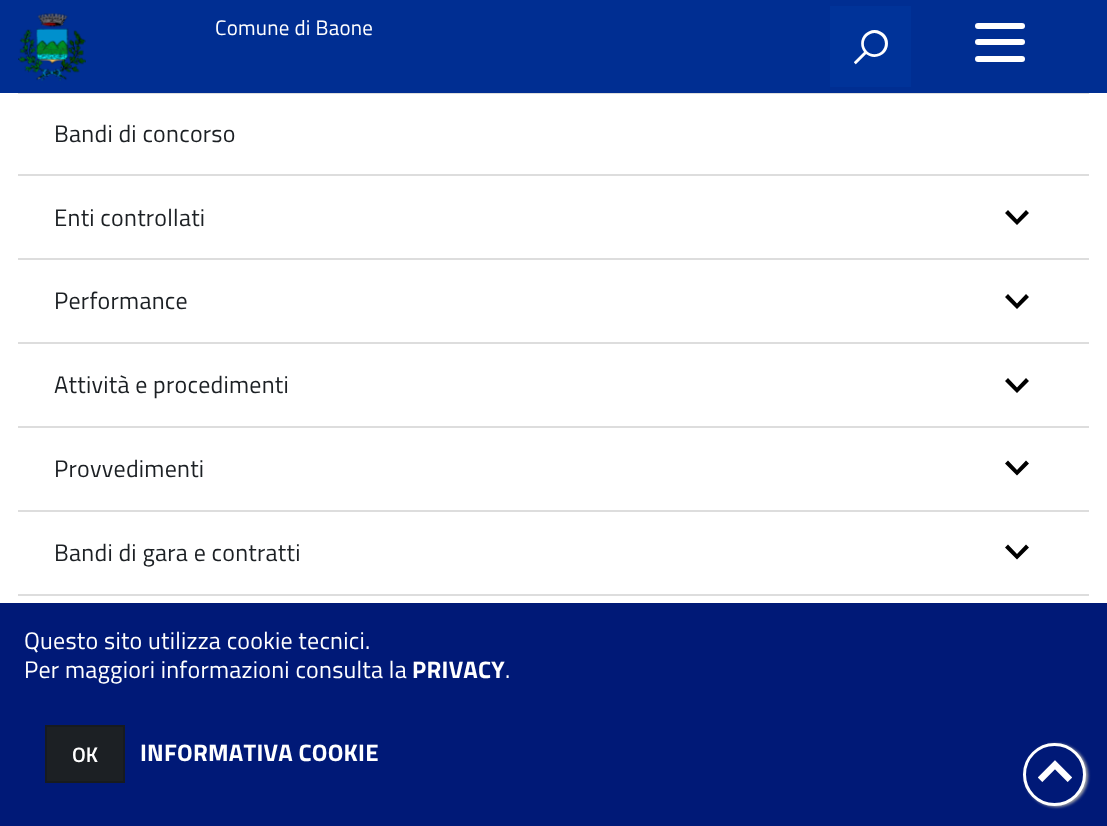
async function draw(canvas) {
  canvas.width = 1107
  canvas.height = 826
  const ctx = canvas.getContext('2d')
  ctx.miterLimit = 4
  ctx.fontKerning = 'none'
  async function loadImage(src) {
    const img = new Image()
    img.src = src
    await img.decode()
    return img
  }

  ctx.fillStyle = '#fff'
  ctx.fillRect(0, 0, 1107, 826)
  ctx.fillStyle = '#002e92'
  ctx.fillRect(0, 0, 1107, 93)
  ctx.drawImage(await loadImage('image0.png'), 18, 13, 68, 68)
  ctx.letterSpacing = '0.25px'
  ctx.font = '21px Titillium Web'
  ctx.fillStyle = '#fff'
  ctx.fillText('Comune di Baone', 215, 35)
  ctx.fillStyle = '#039'
  ctx.fillRect(830, 6, 81, 81)
  ctx.letterSpacing = '0px'
  ctx.font = 'bold 33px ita'
  ctx.fillStyle = '#fff'
  ctx.fillText('🔍', 854, 62)
  ctx.beginPath()
  ctx.roundRect(975, 39, 50, 6, 3)
  ctx.fill()
  ctx.beginPath()
  ctx.roundRect(975, 23, 50, 6, 3)
  ctx.fill()
  ctx.beginPath()
  ctx.roundRect(975, 56, 50, 6, 3)
  ctx.fill()
  ctx.fillStyle = '#ddd'
  ctx.fillRect(18, 93, 1071, 1)
  ctx.letterSpacing = '0.25px'
  ctx.font = '24px Titillium Web'
  ctx.fillStyle = '#1c2024'
  ctx.fillText('Bandi di concorso', 54, 142)
  ctx.fillStyle = '#ddd'
  ctx.fillRect(18, 174, 1071, 2)
  ctx.fillStyle = '#1c2024'
  ctx.fillText('Enti controllati', 54, 226)
  ctx.fillStyle = '#000'
  ctx.beginPath()
  ctx.moveTo(1008, 210)
  ctx.lineTo(1005, 213)
  ctx.lineTo(1017, 225)
  ctx.lineTo(1029, 213)
  ctx.lineTo(1026, 210)
  ctx.lineTo(1017, 219.5)
  ctx.closePath()
  ctx.fill()
  ctx.fillStyle = '#ddd'
  ctx.fillRect(18, 258, 1071, 2)
  ctx.fillStyle = '#1c2024'
  ctx.fillText('Performance', 54, 309)
  ctx.fillStyle = '#000'
  ctx.beginPath()
  ctx.moveTo(1008, 294)
  ctx.lineTo(1005, 297)
  ctx.lineTo(1017, 309)
  ctx.lineTo(1029, 297)
  ctx.lineTo(1026, 294)
  ctx.lineTo(1017, 303.5)
  ctx.closePath()
  ctx.fill()
  ctx.fillStyle = '#ddd'
  ctx.fillRect(18, 342, 1071, 2)
  ctx.fillStyle = '#1c2024'
  ctx.fillText('Attività e procedimenti', 54, 393)
  ctx.fillStyle = '#000'
  ctx.beginPath()
  ctx.moveTo(1008, 378)
  ctx.lineTo(1005, 381)
  ctx.lineTo(1017, 393)
  ctx.lineTo(1029, 381)
  ctx.lineTo(1026, 378)
  ctx.lineTo(1017, 387.5)
  ctx.closePath()
  ctx.fill()
  ctx.fillStyle = '#ddd'
  ctx.fillRect(18, 426, 1071, 2)
  ctx.fillStyle = '#1c2024'
  ctx.fillText('Provvedimenti', 54, 477)
  ctx.fillStyle = '#000'
  ctx.beginPath()
  ctx.moveTo(1008, 460.5)
  ctx.lineTo(1005, 463.5)
  ctx.lineTo(1017, 475.5)
  ctx.lineTo(1029, 463.5)
  ctx.lineTo(1026, 460.5)
  ctx.lineTo(1017, 470)
  ctx.closePath()
  ctx.fill()
  ctx.fillStyle = '#ddd'
  ctx.fillRect(18, 510, 1071, 2)
  ctx.fillStyle = '#1c2024'
  ctx.fillText('Bandi di gara e contratti', 54, 561)
  ctx.fillStyle = '#000'
  ctx.beginPath()
  ctx.moveTo(1008, 544.5)
  ctx.lineTo(1005, 547.5)
  ctx.lineTo(1017, 559.5)
  ctx.lineTo(1029, 547.5)
  ctx.lineTo(1026, 544.5)
  ctx.lineTo(1017, 554)
  ctx.closePath()
  ctx.fill()
  ctx.fillStyle = '#ddd'
  ctx.fillRect(18, 594, 1071, 2)
  ctx.fillStyle = '#001977'
  ctx.fillRect(0, 603, 1107, 223)
  ctx.fillStyle = '#fff'
  ctx.fillText('Questo sito utilizza cookie tecnici.', 24, 649)
  ctx.fillText('Per maggiori informazioni consulta la', 24, 678)
  ctx.font = 'bold 24px Titillium Web'
  ctx.fillText('PRIVACY', 412, 678)
  ctx.font = '24px Titillium Web'
  ctx.fillText('.', 505, 678)
  ctx.fillStyle = '#1c2024'
  ctx.beginPath()
  ctx.rect(46, 726, 78, 56)
  ctx.fill()
  ctx.strokeStyle = '#171b1f'
  ctx.lineWidth = 2
  ctx.stroke()
  ctx.letterSpacing = '0px'
  ctx.font = '600 21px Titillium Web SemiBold'
  ctx.fillStyle = '#fff'
  ctx.fillText('OK', 72, 762)
  ctx.letterSpacing = '0.25px'
  ctx.font = 'bold 24px Titillium Web'
  ctx.fillText('INFORMATIVA COOKIE', 140, 761)
  ctx.fillStyle = '#aaa'
  ctx.filter = 'blur(1.5px)'
  ctx.beginPath()
  ctx.roundRect(1025, 744, 63, 63, 31.5)
  ctx.fill()
  ctx.filter = 'none'
  ctx.fillStyle = '#001977'
  ctx.beginPath()
  ctx.arc(1054.5, 774.5, 30, 0, 2 * Math.PI)
  ctx.fill()
  ctx.strokeStyle = '#fff'
  ctx.lineWidth = 3
  ctx.stroke()
  ctx.letterSpacing = '0px'
  ctx.font = 'bold 33px ita'
  ctx.fillStyle = '#fff'
  ctx.fillText('⏷', 1038, 786)
}

draw(document.querySelector('canvas'))
